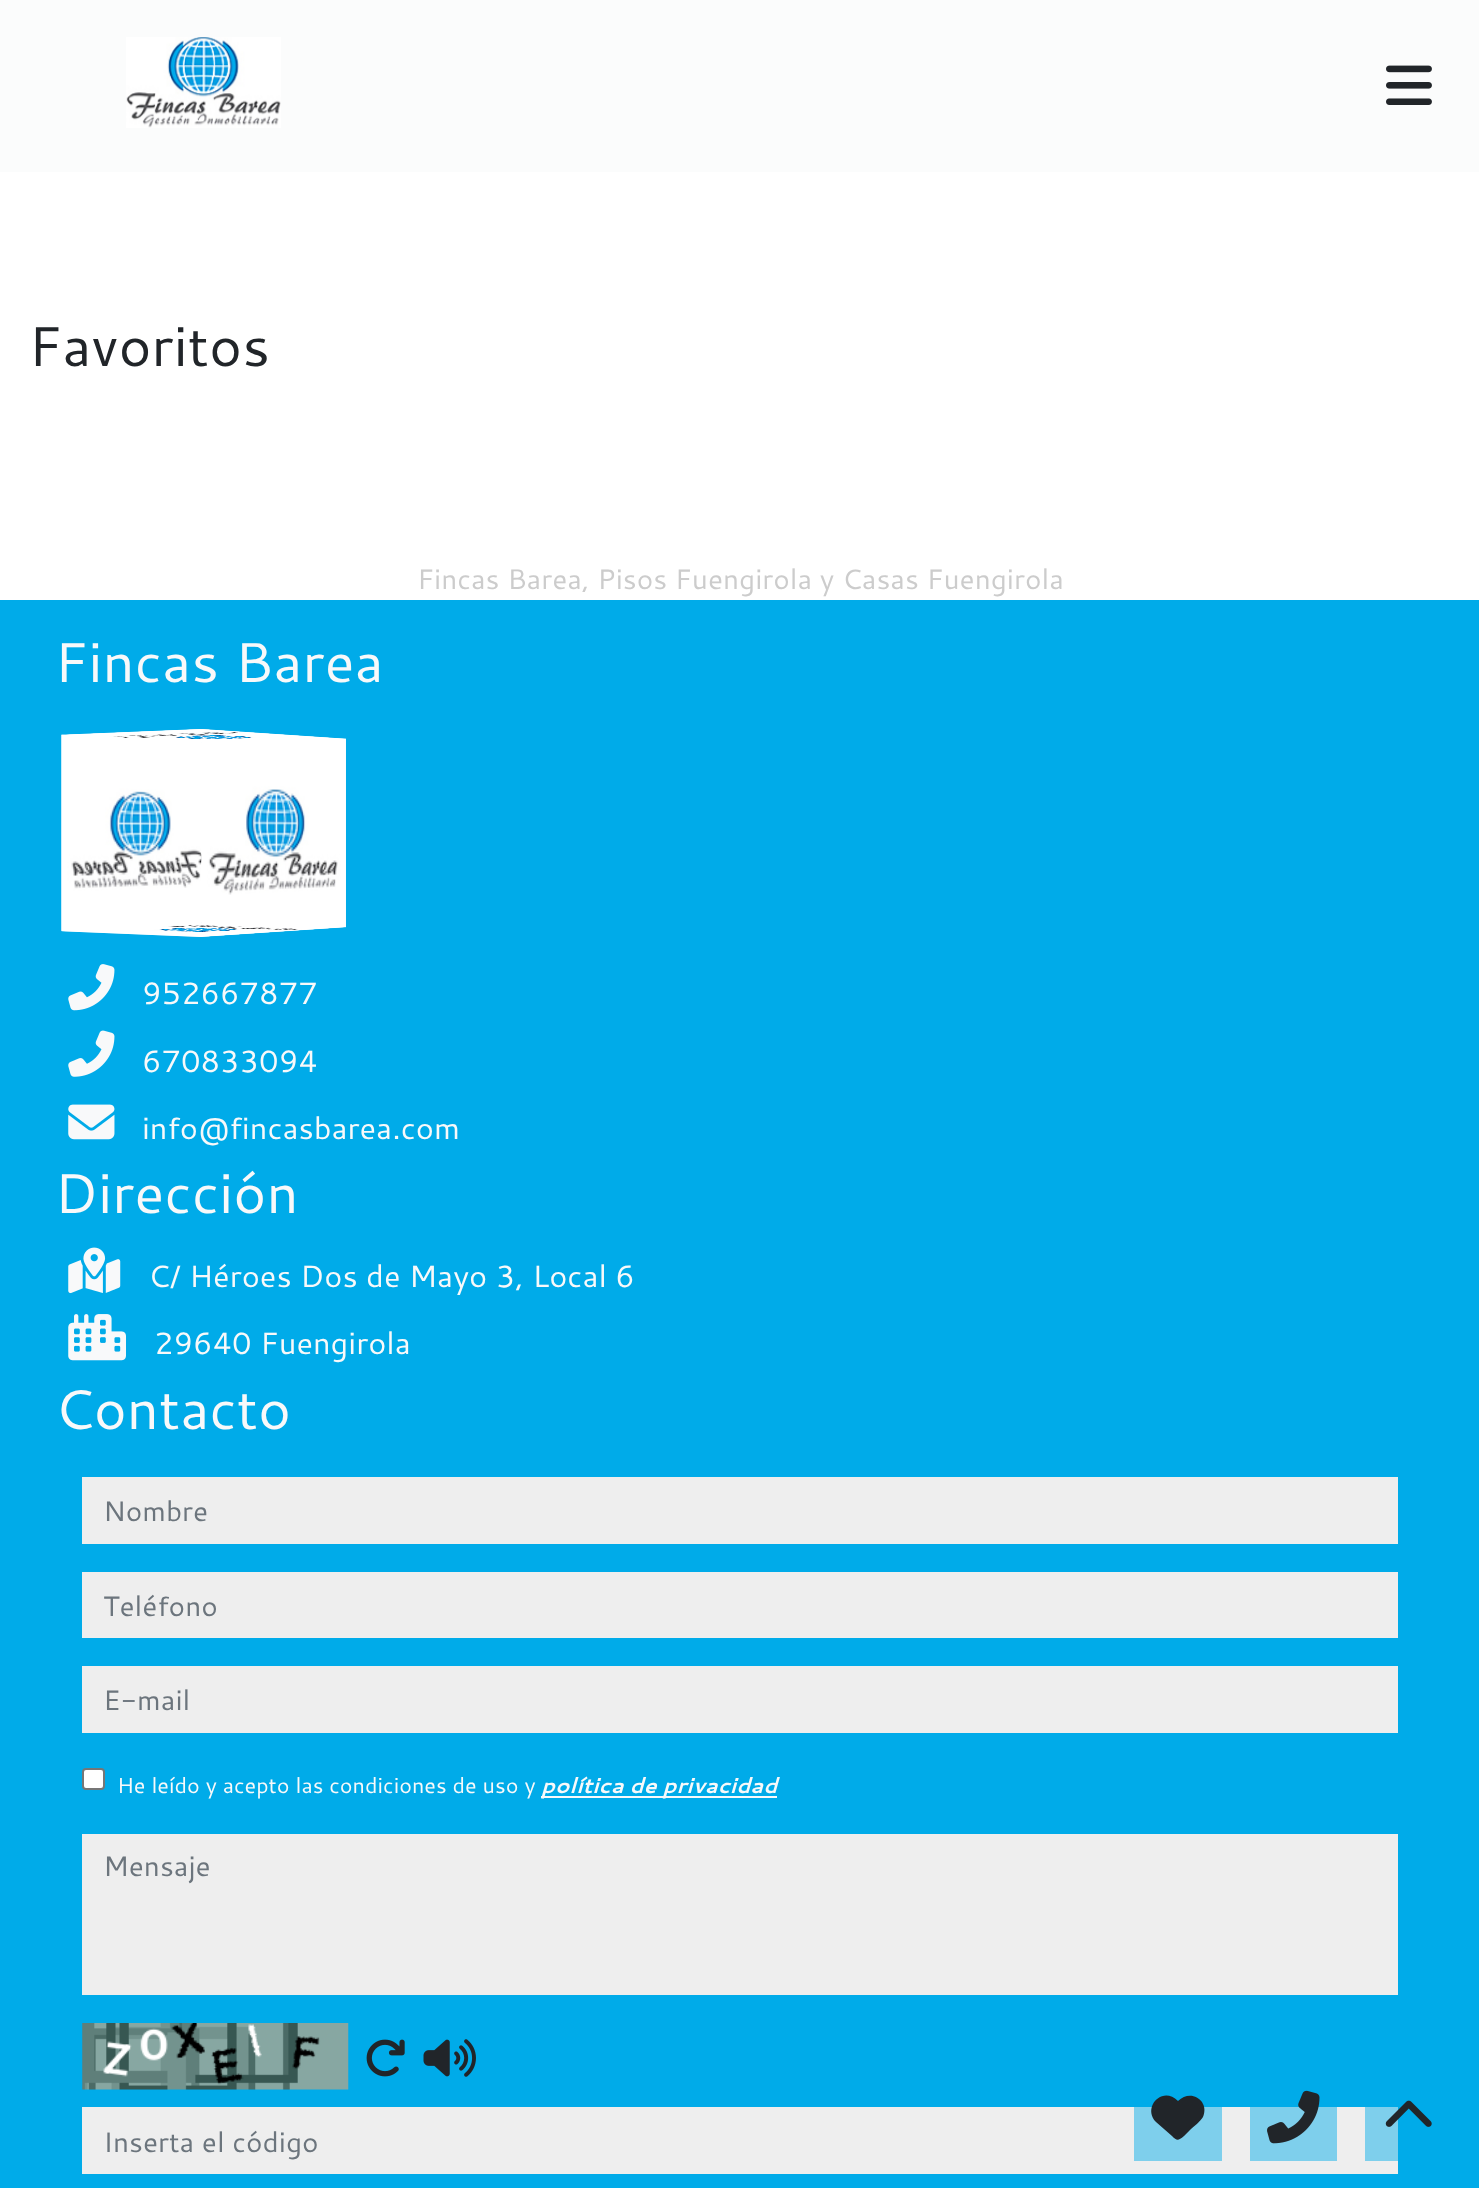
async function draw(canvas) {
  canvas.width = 1479
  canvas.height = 2188
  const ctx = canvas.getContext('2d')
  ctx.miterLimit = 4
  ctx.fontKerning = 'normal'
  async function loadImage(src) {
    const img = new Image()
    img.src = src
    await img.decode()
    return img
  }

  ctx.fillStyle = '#fff'
  ctx.fillRect(0, 0, 1479, 2188)
  ctx.fillStyle = '#fbfcfc'
  ctx.fillRect(0, 0, 1479, 172)
  ctx.drawImage(await loadImage('image0.png'), 126, 37, 155, 91)
  ctx.drawImage(await loadImage('image1.png'), 1386, 65, 46, 40)
  ctx.font = '56px Cantarell'
  ctx.fillStyle = '#212529'
  ctx.fillText('Favoritos', 28, 366)
  ctx.font = '28px Cantarell'
  ctx.fillStyle = '#ccc'
  ctx.fillText('Fincas Barea, Pisos Fuengirola y Casas Fuengirola', 417, 589)
  ctx.fillStyle = '#00abe9'
  ctx.fillRect(0, 600, 1479, 1588)
  ctx.font = '56px Cantarell'
  ctx.fillStyle = '#f8f9fa'
  ctx.fillText('Fincas Barea', 54, 682)
  ctx.drawImage(await loadImage('image2.png'), 61, 729, 141, 208)
  ctx.drawImage(await loadImage('image4.png'), 61, 734, 141, 198)
  ctx.drawImage(await loadImage('image6.png'), 340, 738, 6, 190)
  ctx.drawImage(await loadImage('image5.png'), 201, 729, 145, 208)
  ctx.drawImage(await loadImage('image3.png'), 66, 729, 278, 14)
  ctx.drawImage(await loadImage('image7.png'), 62, 923, 282, 14)
  ctx.drawImage(await loadImage('image8.png'), 68, 964, 47, 47)
  ctx.font = '30.75px Cantarell'
  ctx.fillText('952667877', 142, 1004)
  ctx.drawImage(await loadImage('image9.png'), 68, 1030, 47, 47)
  ctx.fillText('670833094', 142, 1072)
  ctx.drawImage(await loadImage('image10.png'), 68, 1104, 47, 36)
  ctx.fillText('info@fincasbarea.com', 142, 1139)
  ctx.font = '56px Cantarell'
  ctx.fillText('Dirección', 54, 1213)
  ctx.drawImage(await loadImage('image11.png'), 68, 1247, 53, 47)
  ctx.font = '30.75px Cantarell'
  ctx.fillText('C/ Héroes Dos de Mayo 3, Local 6', 148, 1287)
  ctx.drawImage(await loadImage('image12.png'), 68, 1314, 58, 47)
  ctx.fillText('29640 Fuengirola', 154, 1354)
  ctx.font = '56px Cantarell'
  ctx.fillText('Contacto', 54, 1429)
  ctx.fillStyle = '#eee'
  ctx.fillRect(82, 1477, 1316, 67)
  ctx.font = '28px Cantarell'
  ctx.fillStyle = '#6c757d'
  ctx.fillText('Nombre', 103, 1521)
  ctx.fillStyle = '#eee'
  ctx.fillRect(82, 1572, 1316, 66)
  ctx.fillStyle = '#6c757d'
  ctx.fillText('Teléfono', 103, 1616)
  ctx.fillStyle = '#eee'
  ctx.fillRect(82, 1666, 1316, 67)
  ctx.fillStyle = '#6c757d'
  ctx.fillText('E-mail', 103, 1710)
  ctx.fillStyle = '#fff'
  ctx.beginPath()
  ctx.roundRect(83, 1769, 21, 20, 3)
  ctx.fill()
  ctx.strokeStyle = '#767676'
  ctx.lineWidth = 2
  ctx.stroke()
  ctx.font = '21.6px Cantarell'
  ctx.fillStyle = '#f8f9fa'
  ctx.fillText('He leído y acepto las condiciones de uso y', 117, 1793)
  ctx.fillRect(541, 1796, 236, 2)
  ctx.font = 'italic bold 21.6px Cantarell'
  ctx.fillText('política de privacidad', 541, 1793)
  ctx.fillStyle = '#eee'
  ctx.fillRect(82, 1834, 1316, 161)
  ctx.font = '28px Cantarell'
  ctx.fillStyle = '#6c757d'
  ctx.fillText('Mensaje', 103, 1876)
  ctx.drawImage(await loadImage('image13.png'), 82, 2023, 267, 67)
  ctx.drawImage(await loadImage('image14.png'), 366, 2039, 39, 38)
  ctx.drawImage(await loadImage('image15.png'), 423, 2039, 53, 38)
  ctx.fillStyle = '#eee'
  ctx.fillRect(82, 2107, 1316, 67)
  ctx.fillStyle = '#7ecfec'
  ctx.fillRect(1134, 2107, 88, 54)
  ctx.fillRect(1250, 2107, 87, 54)
  ctx.fillRect(1365, 2107, 33, 54)
  ctx.fillStyle = '#6c757d'
  ctx.fillText('Inserta el código', 103, 2152)
  ctx.fillStyle = '#212529'
  ctx.beginPath()
  ctx.moveTo(1156, 2122)
  ctx.lineTo(1175, 2139)
  ctx.lineTo(1156, 2122)
  ctx.lineTo(1172, 2136)
  ctx.bezierCurveTo(1177, 2141, 1178, 2141, 1184, 2136)
  ctx.lineTo(1190, 2130)
  ctx.bezierCurveTo(1194, 2126, 1200, 2122, 1203, 2117)
  ctx.bezierCurveTo(1210, 2101, 1191, 2088, 1178, 2101)
  ctx.bezierCurveTo(1162, 2085, 1142, 2108, 1156, 2122)
  ctx.closePath()
  ctx.fill()
  ctx.drawImage(await loadImage('image16.png'), 1267, 2090, 53, 54)
  ctx.drawImage(await loadImage('image17.png'), 1385, 2100, 47, 27)
}

draw(document.querySelector('canvas'))
